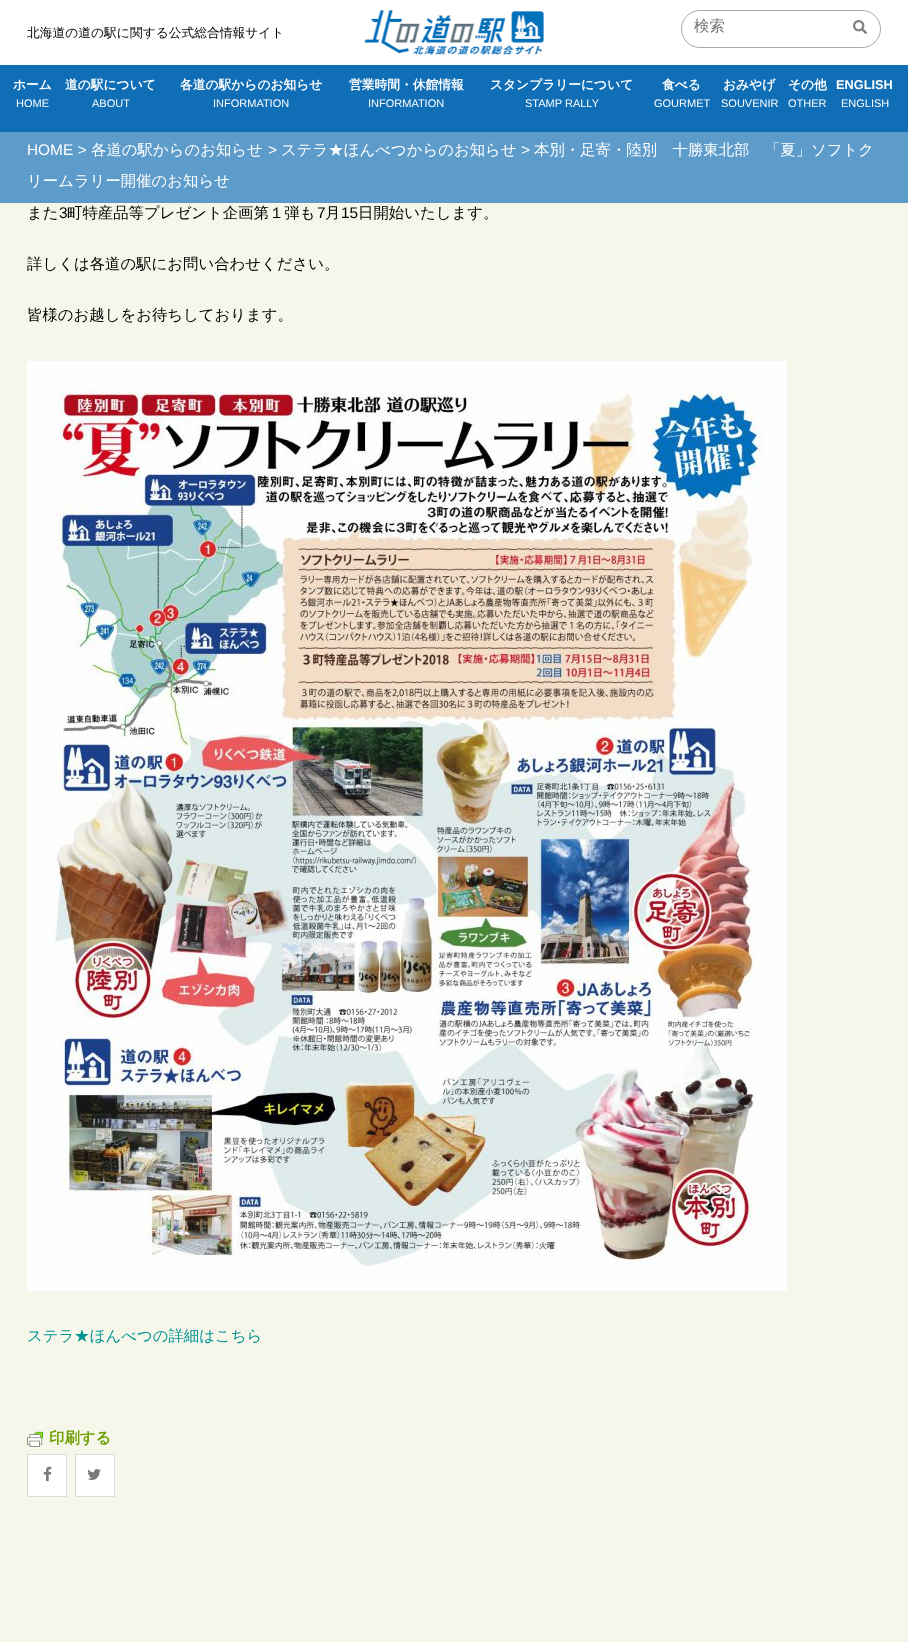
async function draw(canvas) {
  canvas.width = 908
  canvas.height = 1642
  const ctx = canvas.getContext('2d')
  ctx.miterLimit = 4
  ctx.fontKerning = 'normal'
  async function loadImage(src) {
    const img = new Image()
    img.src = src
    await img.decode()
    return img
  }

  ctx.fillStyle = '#f6f6ea'
  ctx.fillRect(0, 0, 908, 1642)
  ctx.fillStyle = '#fff'
  ctx.fillRect(0, 0, 908, 65)
  ctx.font = '500 12.75px WenQuanYi Zen Hei'
  ctx.fillStyle = '#000'
  ctx.fillText('北海道の道の駅に関する公式総合情報サイト', 27, 37)
  ctx.drawImage(await loadImage('image0.png'), 364, 10, 180, 45)
  ctx.beginPath()
  ctx.roundRect(681.5, 10.5, 199, 37, 18.5)
  ctx.strokeStyle = '#a9a9a9'
  ctx.stroke()
  ctx.font = '500 15.4px WenQuanYi Zen Hei'
  ctx.fillStyle = '#757575'
  ctx.fillText('検索', 694, 31)
  ctx.drawImage(await loadImage('image1.png'), 853, 20, 14, 14)
  ctx.fillStyle = '#106eb6'
  ctx.fillRect(0, 65, 908, 67)
  ctx.font = 'bold 12.75px WenQuanYi Zen Hei'
  ctx.fillStyle = '#fff'
  ctx.fillText('ホーム', 13, 89)
  ctx.font = '11px Liberation Sans'
  ctx.fillText('HOME', 16, 107)
  ctx.font = 'bold 12.75px WenQuanYi Zen Hei'
  ctx.fillText('道の駅について', 65, 89)
  ctx.font = '11px Liberation Sans'
  ctx.fillText('ABOUT', 92, 107)
  ctx.font = 'bold 12.75px WenQuanYi Zen Hei'
  ctx.fillText('各道の駅からのお知らせ', 180, 89)
  ctx.font = '11px Liberation Sans'
  ctx.fillText('INFORMATION', 213, 107)
  ctx.font = 'bold 12.75px WenQuanYi Zen Hei'
  ctx.fillText('営業時間・休館情報', 349, 89)
  ctx.font = '11px Liberation Sans'
  ctx.fillText('INFORMATION', 368, 107)
  ctx.font = 'bold 12.75px WenQuanYi Zen Hei'
  ctx.fillText('スタンプラリーについて', 490, 89)
  ctx.font = '11px Liberation Sans'
  ctx.fillText('STAMP RALLY', 525, 107)
  ctx.font = 'bold 12.75px WenQuanYi Zen Hei'
  ctx.fillText('食べる', 662, 89)
  ctx.font = '11px Liberation Sans'
  ctx.fillText('GOURMET', 654, 107)
  ctx.font = 'bold 12.75px WenQuanYi Zen Hei'
  ctx.fillText('おみやげ', 723, 89)
  ctx.font = '11px Liberation Sans'
  ctx.fillText('SOUVENIR', 721, 107)
  ctx.font = 'bold 12.75px WenQuanYi Zen Hei'
  ctx.fillText('その他', 788, 89)
  ctx.font = '11px Liberation Sans'
  ctx.fillText('OTHER', 788, 107)
  ctx.font = 'bold 12.75px Liberation Sans'
  ctx.fillText('ENGLISH', 836, 89)
  ctx.font = '11px Liberation Sans'
  ctx.fillText('ENGLISH', 841, 107)
  ctx.fillStyle = '#5d9bca'
  ctx.fillRect(0, 132, 908, 71)
  ctx.font = '15.4px Liberation Sans'
  ctx.fillStyle = '#fff'
  ctx.fillText('HOME >', 27, 155)
  ctx.font = '500 15.4px WenQuanYi Zen Hei'
  ctx.fillText('各道の駅からのお知らせ', 91, 155)
  ctx.font = '15.4px Liberation Sans'
  ctx.fillText('>', 268, 155)
  ctx.font = '500 15.4px WenQuanYi Zen Hei'
  ctx.fillText('ステラ★ほんべつからのお知らせ', 281, 155)
  ctx.font = '15.4px Liberation Sans'
  ctx.fillText('>', 521, 155)
  ctx.font = '500 15.4px WenQuanYi Zen Hei'
  ctx.fillText('本別・足寄・陸別　十勝東北部　「夏」ソフトク', 534, 155)
  ctx.fillText('リームラリー開催のお知らせ', 27, 186)
  ctx.fillStyle = '#000'
  ctx.fillText('また', 27, 218)
  ctx.font = '15.4px Liberation Sans'
  ctx.fillText('3', 59, 218)
  ctx.font = '500 15.4px WenQuanYi Zen Hei'
  ctx.fillText('町特産品等プレゼント企画第１弾も', 67, 218)
  ctx.font = '15.4px Liberation Sans'
  ctx.fillText('7', 317, 218)
  ctx.font = '500 15.4px WenQuanYi Zen Hei'
  ctx.fillText('月', 325, 218)
  ctx.font = '15.4px Liberation Sans'
  ctx.fillText('15', 341, 218)
  ctx.font = '500 15.4px WenQuanYi Zen Hei'
  ctx.fillText('日開始いたします。', 358, 218)
  ctx.fillText('詳しくは各道の駅にお問い合わせください。', 27, 269)
  ctx.fillText('皆様のお越しをお待ちしております。', 27, 320)
  ctx.drawImage(await loadImage('image2.png'), 27, 361, 760, 930)
  ctx.fillStyle = '#009491'
  ctx.fillText('ステラ★ほんべつの詳細はこちら', 27, 1341)
  ctx.drawImage(await loadImage('image3.png'), 27, 1431, 16, 16)
  ctx.font = 'bold 15.4px WenQuanYi Zen Hei'
  ctx.fillStyle = '#6d9f00'
  ctx.fillText('印刷する', 49, 1443)
  ctx.fillStyle = '#fff'
  ctx.beginPath()
  ctx.rect(27.5, 1454.5, 39, 42)
  ctx.fill()
  ctx.strokeStyle = '#dcdcdc'
  ctx.stroke()
  ctx.drawImage(await loadImage('image4.png'), 43, 1466, 9, 16)
  ctx.beginPath()
  ctx.rect(75.5, 1454.5, 39, 42)
  ctx.fill()
  ctx.stroke()
  ctx.drawImage(await loadImage('image5.png'), 87, 1469, 14, 11)
}

draw(document.querySelector('canvas'))
